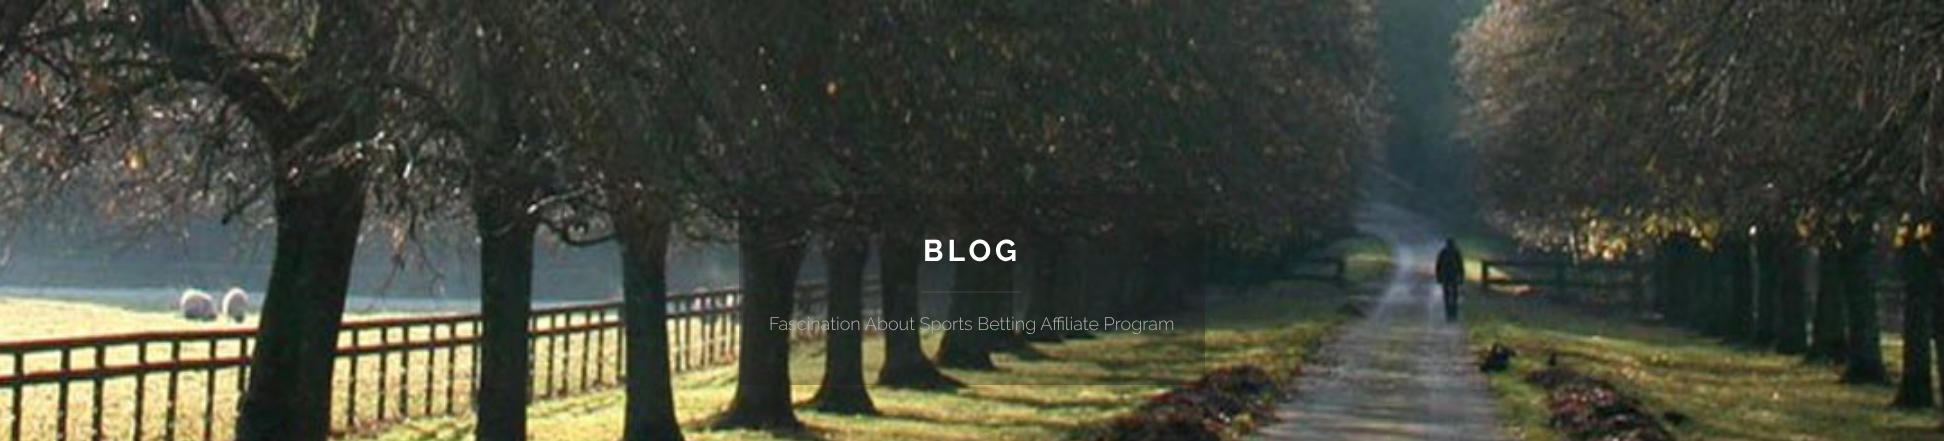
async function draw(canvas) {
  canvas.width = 1944
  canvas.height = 441
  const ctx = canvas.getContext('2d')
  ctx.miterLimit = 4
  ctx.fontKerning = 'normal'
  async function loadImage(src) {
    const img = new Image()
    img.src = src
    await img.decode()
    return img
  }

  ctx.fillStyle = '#fff'
  ctx.fillRect(0, 0, 1944, 441)
  ctx.drawImage(await loadImage('image0.png'), 0, 0, 1944, 441)
  ctx.fillStyle = '#1d1d1d57'
  ctx.fillRect(739, 194, 466, 191)
  ctx.letterSpacing = '4px'
  ctx.font = 'bold 30px Raleway'
  ctx.fillStyle = '#fff'
  ctx.fillText('BLOG', 923, 261)
  ctx.fillStyle = '#ffffff0f'
  ctx.fillRect(922, 291, 100, 2)
  ctx.letterSpacing = '0px'
  ctx.font = '300 18px Raleway'
  ctx.fillStyle = '#adb0ac'
  ctx.fillText('Fascination About Sports Betting Affiliate Program', 769, 330)
}

draw(document.querySelector('canvas'))
